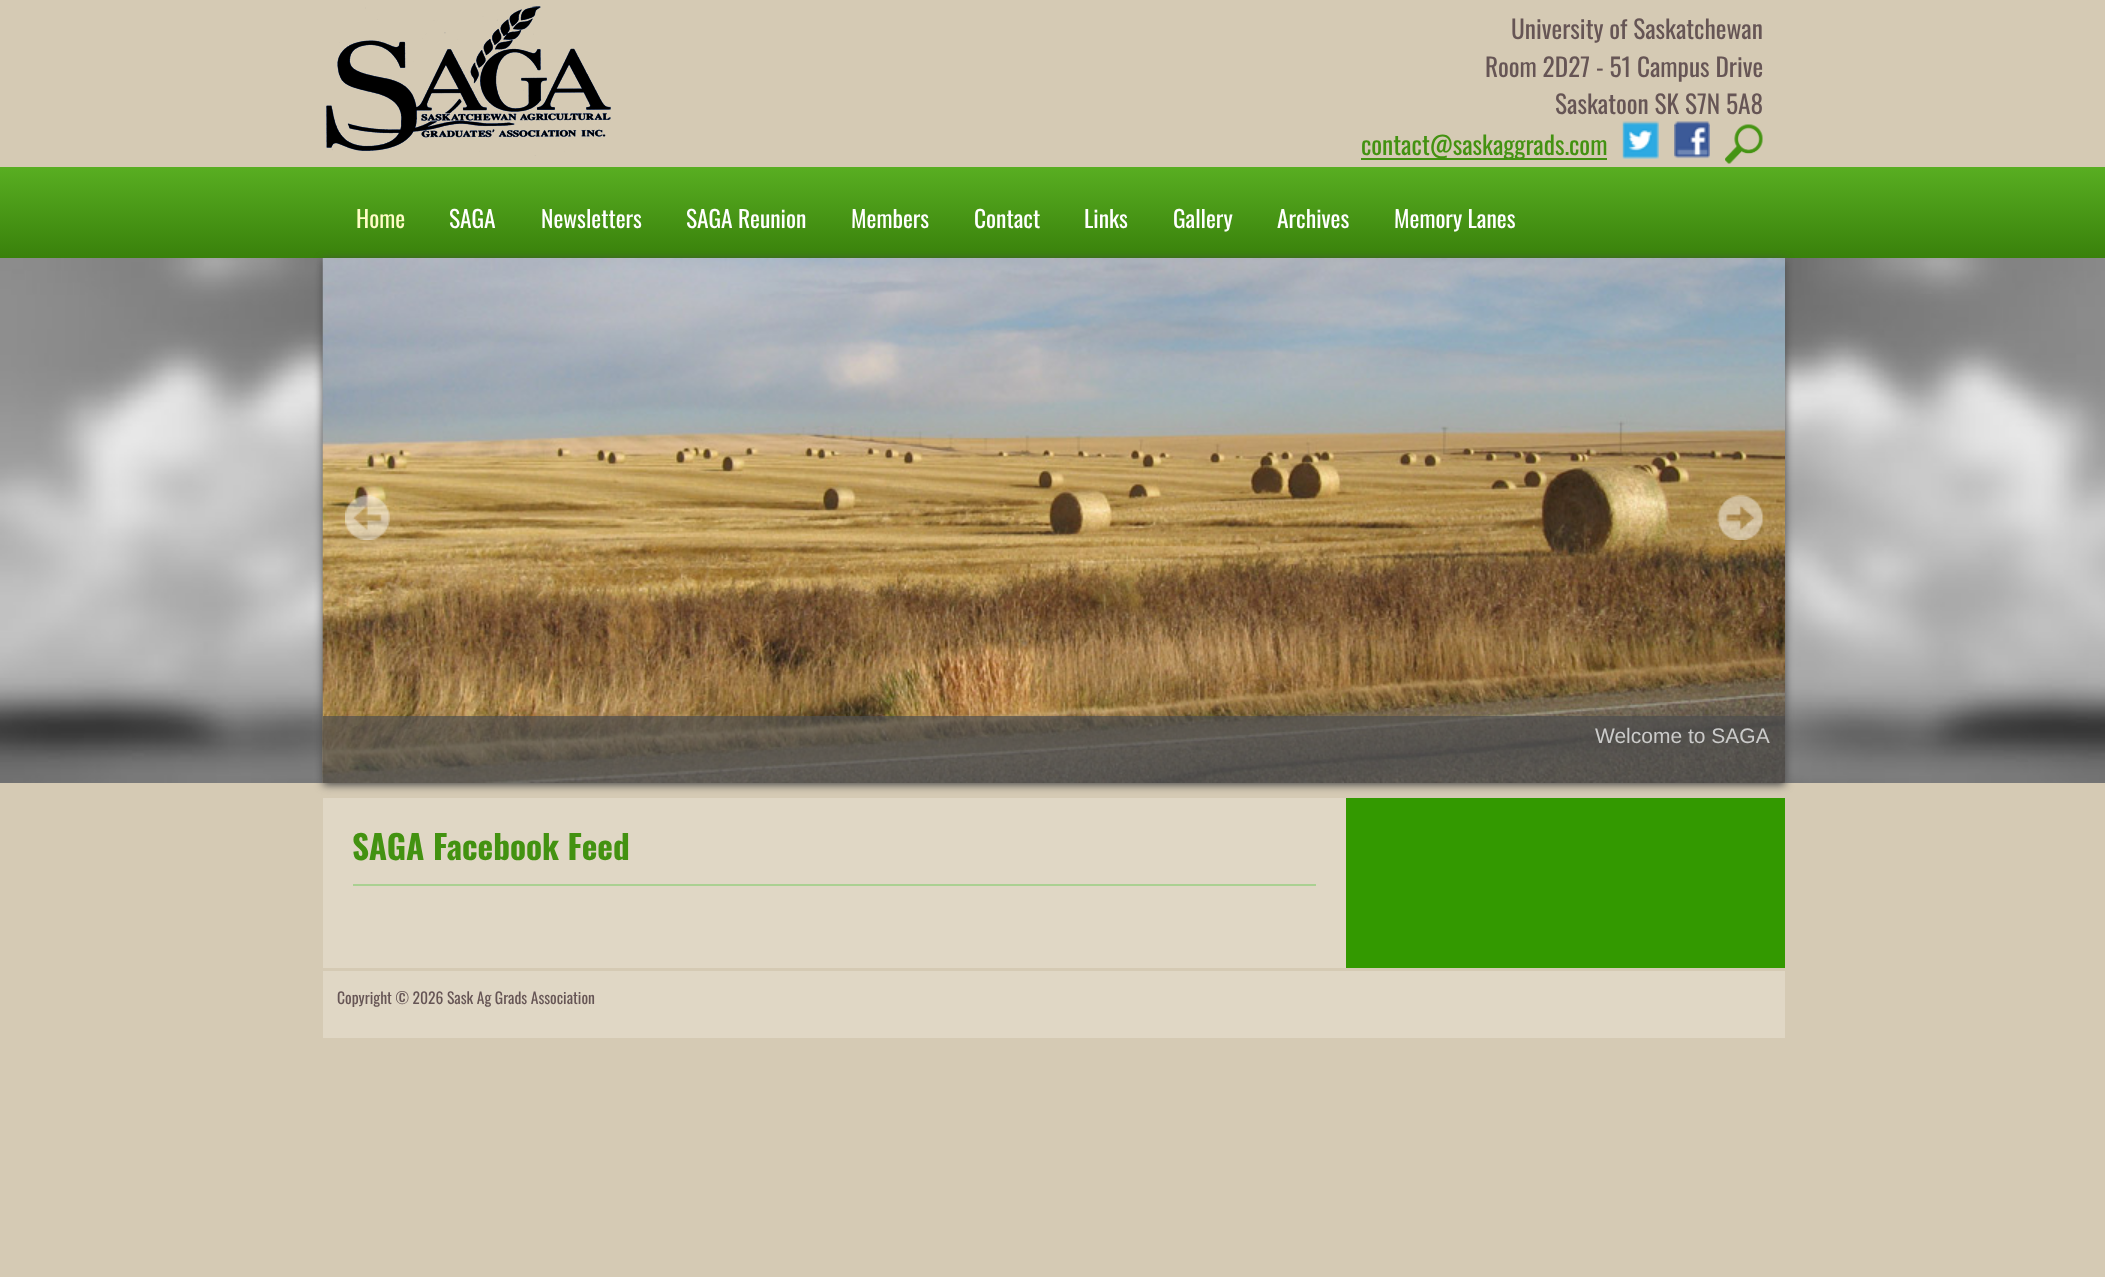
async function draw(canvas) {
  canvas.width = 2105
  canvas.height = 1277
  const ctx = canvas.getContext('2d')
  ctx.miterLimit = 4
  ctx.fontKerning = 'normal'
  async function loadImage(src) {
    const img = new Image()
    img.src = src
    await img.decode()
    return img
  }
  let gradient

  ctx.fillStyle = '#d5cab4'
  ctx.fillRect(0, 0, 2105, 1277)
  ctx.drawImage(await loadImage('image0.png'), 326, 6, 285, 150)
  ctx.font = '25.4px Oswald'
  ctx.fillStyle = '#655'
  ctx.fillText('University of Saskatchewan', 1511, 39)
  ctx.fillText('Room 2D27 - 51 Campus Drive', 1485, 77)
  ctx.fillText('Saskatoon SK S7N 5A8', 1555, 114)
  ctx.fillStyle = '#439211'
  ctx.fillRect(1361, 158, 246, 2)
  ctx.fillText('contact@saskaggrads.com', 1361, 155)
  ctx.drawImage(await loadImage('image1.png'), 1622, 121, 37, 38)
  ctx.drawImage(await loadImage('image2.png'), 1674, 121, 36, 38)
  ctx.drawImage(await loadImage('image3.png'), 1725, 124, 38, 40)
  gradient = ctx.createLinearGradient(1053, 166, 1053, 258)
  gradient.addColorStop(0, '#59af22')
  gradient.addColorStop(1, '#39810b')
  ctx.fillStyle = gradient
  ctx.fillRect(0, 167, 2105, 91)
  ctx.font = '23.5px Oswald'
  ctx.fillStyle = '#fffdc6'
  ctx.fillText('Home', 356, 228)
  ctx.fillStyle = '#fff'
  ctx.fillText('SAGA', 449, 228)
  ctx.fillText('Newsletters', 541, 228)
  ctx.fillText('SAGA Reunion', 686, 228)
  ctx.fillText('Members', 851, 228)
  ctx.fillText('Contact', 974, 228)
  ctx.fillText('Links', 1084, 228)
  ctx.fillText('Gallery', 1173, 228)
  ctx.fillText('Archives', 1277, 228)
  ctx.fillText('Memory Lanes', 1394, 228)
  ctx.drawImage(await loadImage('image4.png'), 0, 258, 2105, 525)
  ctx.fillStyle = '#4a4a4a'
  ctx.filter = 'blur(4px)'
  ctx.beginPath()
  ctx.rect(323, 260, 1462, 525)
  ctx.fill()
  ctx.filter = 'none'
  ctx.drawImage(await loadImage('image5.png'), 322, 258, 1463, 525)
  ctx.drawImage(await loadImage('image6.png'), 345, 495, 45, 45)
  ctx.drawImage(await loadImage('image7.png'), 1717, 495, 46, 45)
  ctx.fillStyle = '#4f4f4fb3'
  ctx.fillRect(323, 716, 1462, 67)
  ctx.font = '21px Liberation Sans'
  ctx.fillStyle = '#cbcbca'
  ctx.fillText('Welcome to SAGA', 1595, 743)
  ctx.fillStyle = '#390'
  ctx.fillRect(1346, 798, 439, 170)
  ctx.fillStyle = '#e0d7c5'
  ctx.fillRect(323, 798, 1023, 170)
  ctx.fillStyle = '#aad092'
  ctx.fillRect(353, 884, 963, 2)
  ctx.font = 'bold 33.25px Oswald'
  ctx.fillStyle = '#439211'
  ctx.fillText('SAGA Facebook Feed', 352, 860)
  ctx.fillStyle = '#e0d7c5'
  ctx.fillRect(323, 971, 1462, 67)
  ctx.font = '15.6px Oswald'
  ctx.fillStyle = '#655'
  ctx.fillText('Copyright © 2026 Sask Ag Grads Association', 337, 1004)
}

draw(document.querySelector('canvas'))
